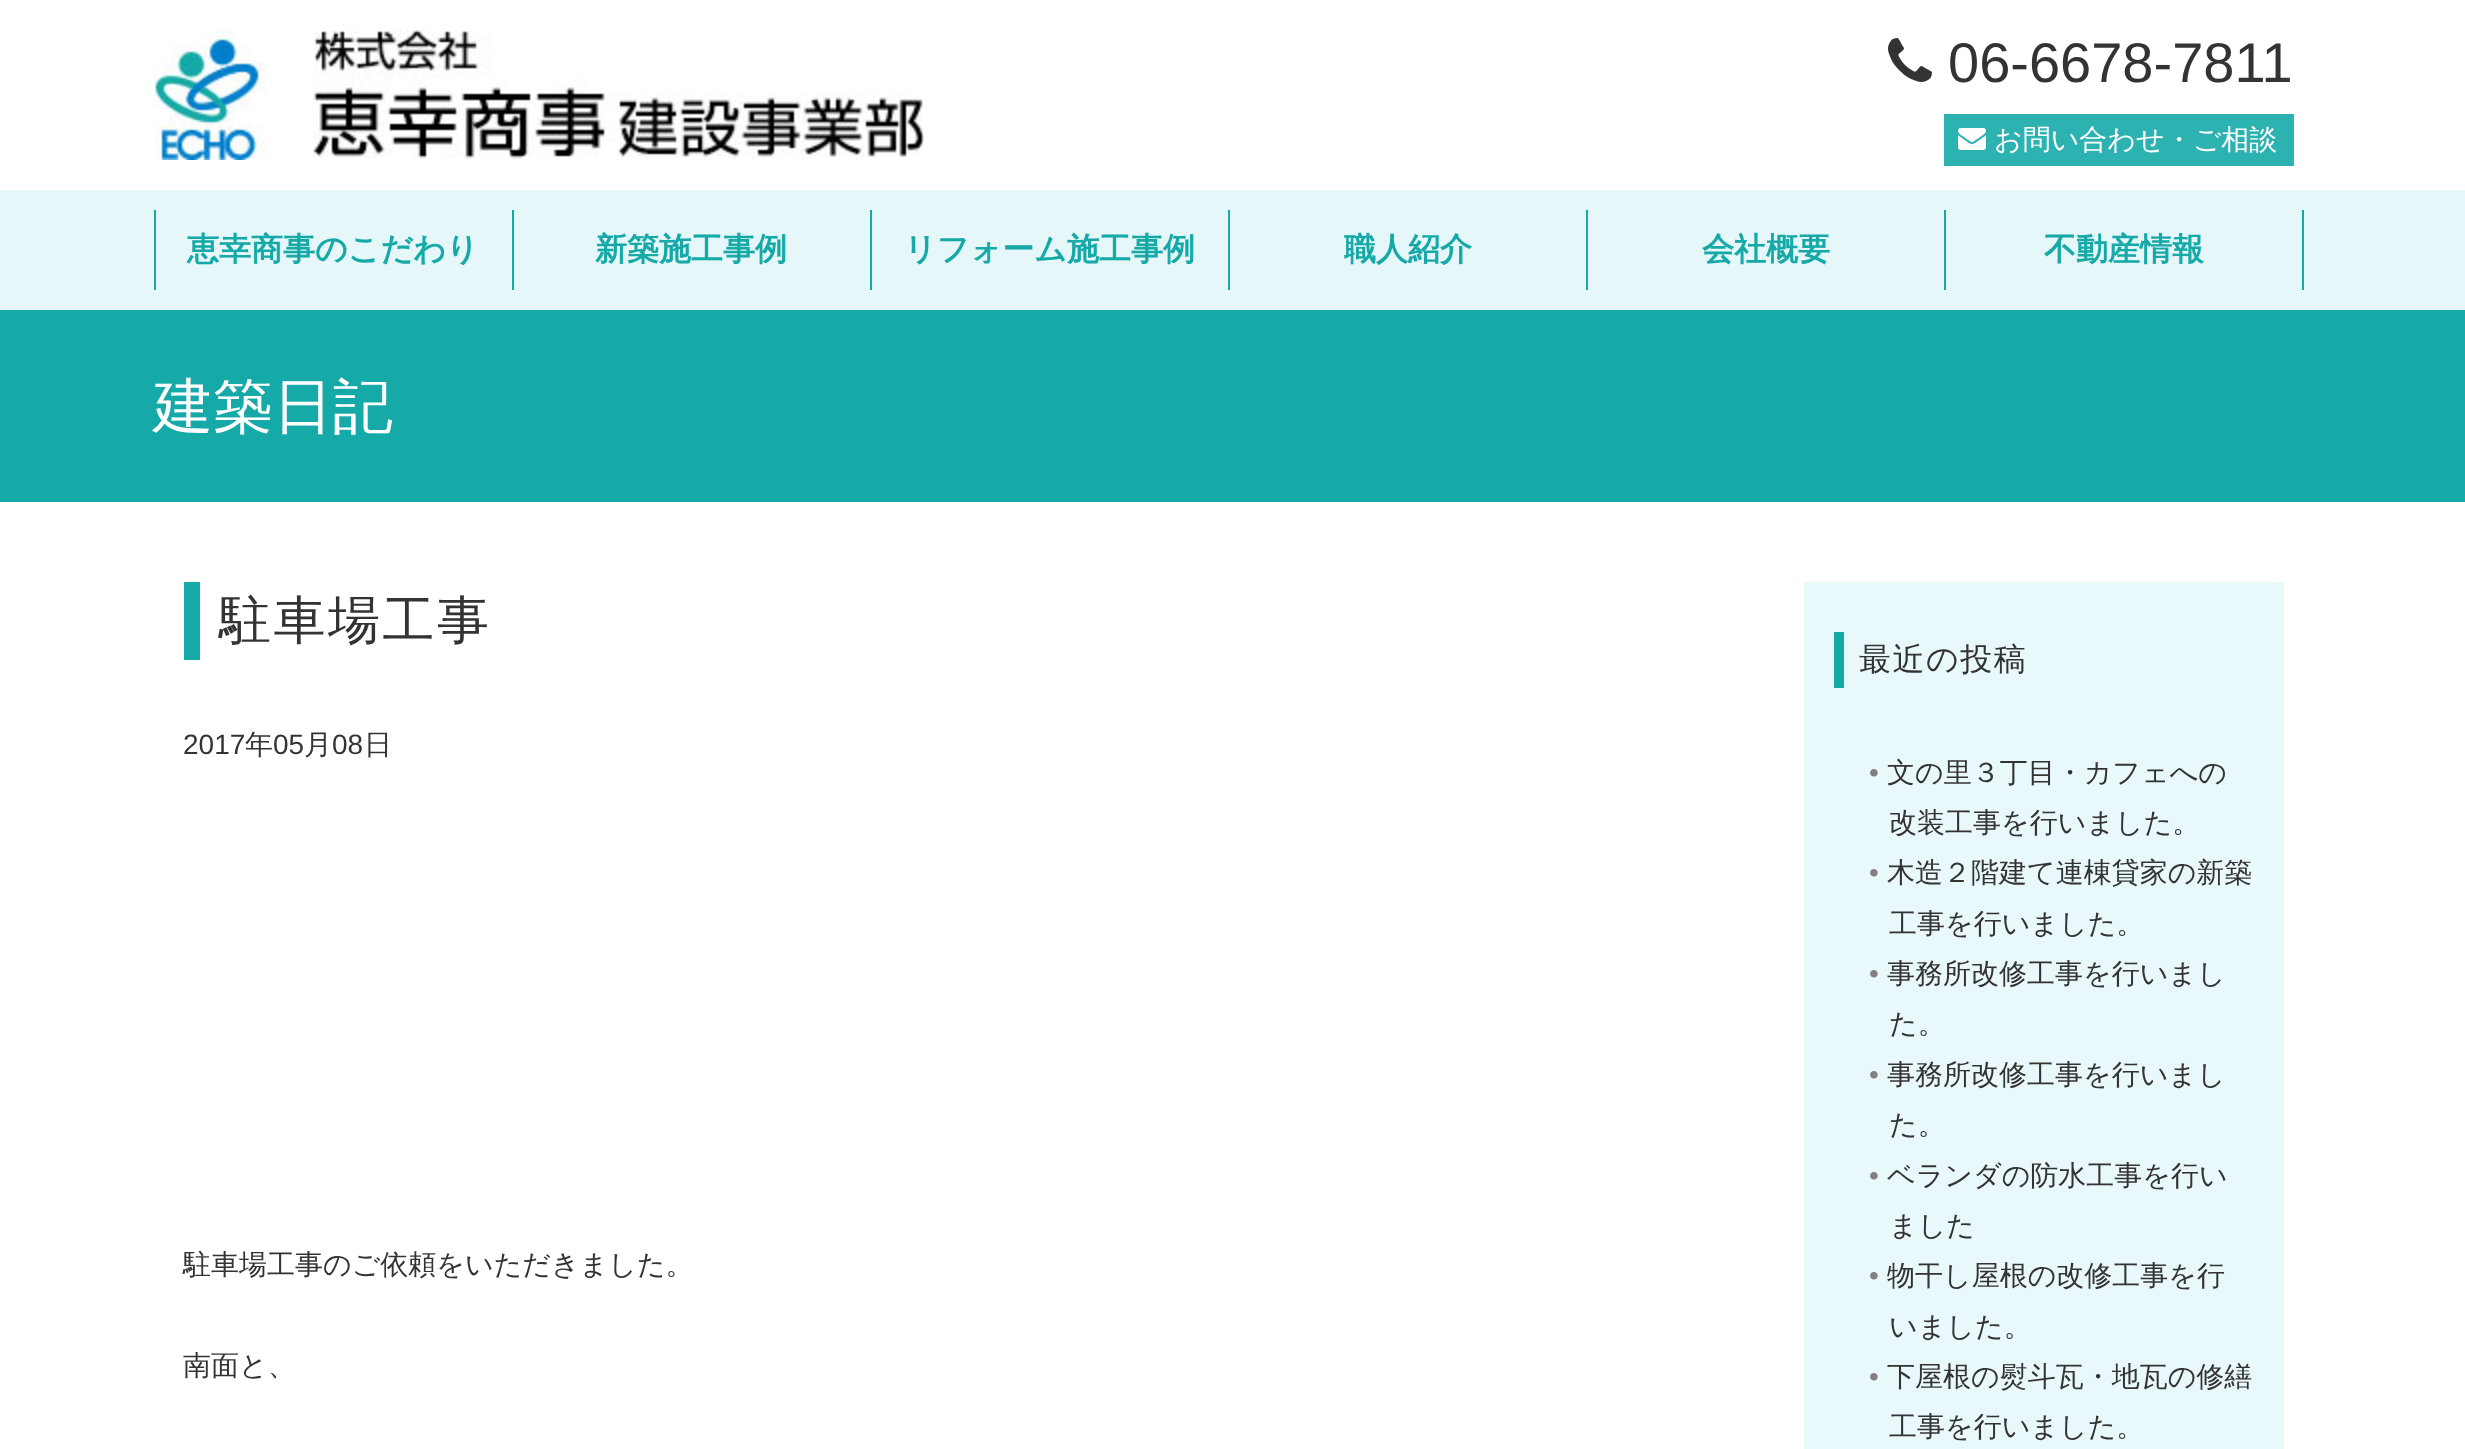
async function draw(canvas) {
  canvas.width = 2465
  canvas.height = 1449
  const ctx = canvas.getContext('2d')
  ctx.miterLimit = 4
  ctx.fontKerning = 'normal'
  async function loadImage(src) {
    const img = new Image()
    img.src = src
    await img.decode()
    return img
  }

  ctx.fillStyle = '#fff'
  ctx.fillRect(0, 0, 2465, 1449)
  ctx.drawImage(await loadImage('image0.png'), 154, 30, 770, 130)
  ctx.drawImage(await loadImage('image1.png'), 1888, 38, 44, 44)
  ctx.font = '56px Liberation Sans'
  ctx.fillStyle = '#333'
  ctx.fillText('06-6678-7811', 1948, 82)
  ctx.fillStyle = '#2cb2b0'
  ctx.fillRect(1944, 114, 350, 52)
  ctx.drawImage(await loadImage('image2.png'), 1958, 128, 28, 22)
  ctx.font = '500 28px WenQuanYi Zen Hei'
  ctx.fillStyle = '#fff'
  ctx.fillText('お問い合わせ・ご相談', 1994, 149)
  ctx.fillStyle = '#e5f7f9'
  ctx.fillRect(0, 190, 2465, 120)
  ctx.fillStyle = '#15a9a7'
  ctx.fillRect(154, 210, 2, 80)
  ctx.fillRect(512, 210, 2, 80)
  ctx.font = 'bold 32px WenQuanYi Zen Hei'
  ctx.fillText('恵幸商事のこだわり', 187, 260)
  ctx.fillRect(870, 210, 2, 80)
  ctx.fillText('新築施工事例', 595, 260)
  ctx.fillRect(1228, 210, 2, 80)
  ctx.fillText('リフォーム施工事例', 904, 260)
  ctx.fillRect(1586, 210, 2, 80)
  ctx.fillText('職人紹介', 1344, 260)
  ctx.fillRect(1944, 210, 2, 80)
  ctx.fillText('会社概要', 1702, 260)
  ctx.fillRect(2302, 210, 2, 80)
  ctx.fillText('不動産情報', 2044, 260)
  ctx.fillRect(0, 310, 2465, 192)
  ctx.font = '500 60px WenQuanYi Zen Hei'
  ctx.fillStyle = '#fff'
  ctx.fillText('建築日記', 153, 427)
  ctx.fillStyle = '#15a9a7'
  ctx.fillRect(184, 582, 16, 78)
  ctx.letterSpacing = '2.5px'
  ctx.font = '500 52px WenQuanYi Zen Hei'
  ctx.fillStyle = '#333'
  ctx.fillText('駐車場工事', 219, 638)
  ctx.letterSpacing = '0px'
  ctx.font = '28px Liberation Sans'
  ctx.fillText('2017', 183, 754)
  ctx.font = '500 28px WenQuanYi Zen Hei'
  ctx.fillText('年', 245, 754)
  ctx.font = '28px Liberation Sans'
  ctx.fillText('05', 273, 754)
  ctx.font = '500 28px WenQuanYi Zen Hei'
  ctx.fillText('月', 304, 754)
  ctx.font = '28px Liberation Sans'
  ctx.fillText('08', 332, 754)
  ctx.font = '500 28px WenQuanYi Zen Hei'
  ctx.fillText('日', 364, 754)
  ctx.fillText('駐車場工事のご依頼をいただきました。', 183, 1274)
  ctx.fillText('南面と、', 183, 1375)
  ctx.fillStyle = '#e9f8fa'
  ctx.fillRect(1804, 582, 480, 867)
  ctx.fillStyle = '#15a9a7'
  ctx.fillRect(1834, 632, 10, 56)
  ctx.letterSpacing = '1.5px'
  ctx.font = '500 32px WenQuanYi Zen Hei'
  ctx.fillStyle = '#333'
  ctx.fillText('最近の投稿', 1859, 670)
  ctx.letterSpacing = '0px'
  ctx.font = '28px Liberation Sans'
  ctx.fillStyle = '#808080'
  ctx.fillText('•', 1869, 782)
  ctx.font = '500 28px WenQuanYi Zen Hei'
  ctx.fillStyle = '#333'
  ctx.fillText('文の里３丁目・カフェへの', 1887, 782)
  ctx.fillText('改装工事を行いました。', 1889, 832)
  ctx.font = '28px Liberation Sans'
  ctx.fillStyle = '#808080'
  ctx.fillText('•', 1869, 882)
  ctx.font = '500 28px WenQuanYi Zen Hei'
  ctx.fillStyle = '#333'
  ctx.fillText('木造２階建て連棟貸家の新築', 1887, 882)
  ctx.fillText('工事を行いました。', 1889, 933)
  ctx.font = '28px Liberation Sans'
  ctx.fillStyle = '#808080'
  ctx.fillText('•', 1869, 983)
  ctx.font = '500 28px WenQuanYi Zen Hei'
  ctx.fillStyle = '#333'
  ctx.fillText('事務所改修工事を行いまし', 1887, 983)
  ctx.fillText('た。', 1889, 1033)
  ctx.font = '28px Liberation Sans'
  ctx.fillStyle = '#808080'
  ctx.fillText('•', 1869, 1084)
  ctx.font = '500 28px WenQuanYi Zen Hei'
  ctx.fillStyle = '#333'
  ctx.fillText('事務所改修工事を行いまし', 1887, 1084)
  ctx.fillText('た。', 1889, 1134)
  ctx.font = '28px Liberation Sans'
  ctx.fillStyle = '#808080'
  ctx.fillText('•', 1869, 1185)
  ctx.font = '500 28px WenQuanYi Zen Hei'
  ctx.fillStyle = '#333'
  ctx.fillText('ベランダの防水工事を行い', 1887, 1185)
  ctx.fillText('ました', 1889, 1235)
  ctx.font = '28px Liberation Sans'
  ctx.fillStyle = '#808080'
  ctx.fillText('•', 1869, 1285)
  ctx.font = '500 28px WenQuanYi Zen Hei'
  ctx.fillStyle = '#333'
  ctx.fillText('物干し屋根の改修工事を行', 1887, 1285)
  ctx.fillText('いました。', 1889, 1336)
  ctx.font = '28px Liberation Sans'
  ctx.fillStyle = '#808080'
  ctx.fillText('•', 1869, 1386)
  ctx.font = '500 28px WenQuanYi Zen Hei'
  ctx.fillStyle = '#333'
  ctx.fillText('下屋根の熨斗瓦・地瓦の修繕', 1887, 1386)
  ctx.fillText('工事を行いました。', 1889, 1436)
}

draw(document.querySelector('canvas'))
